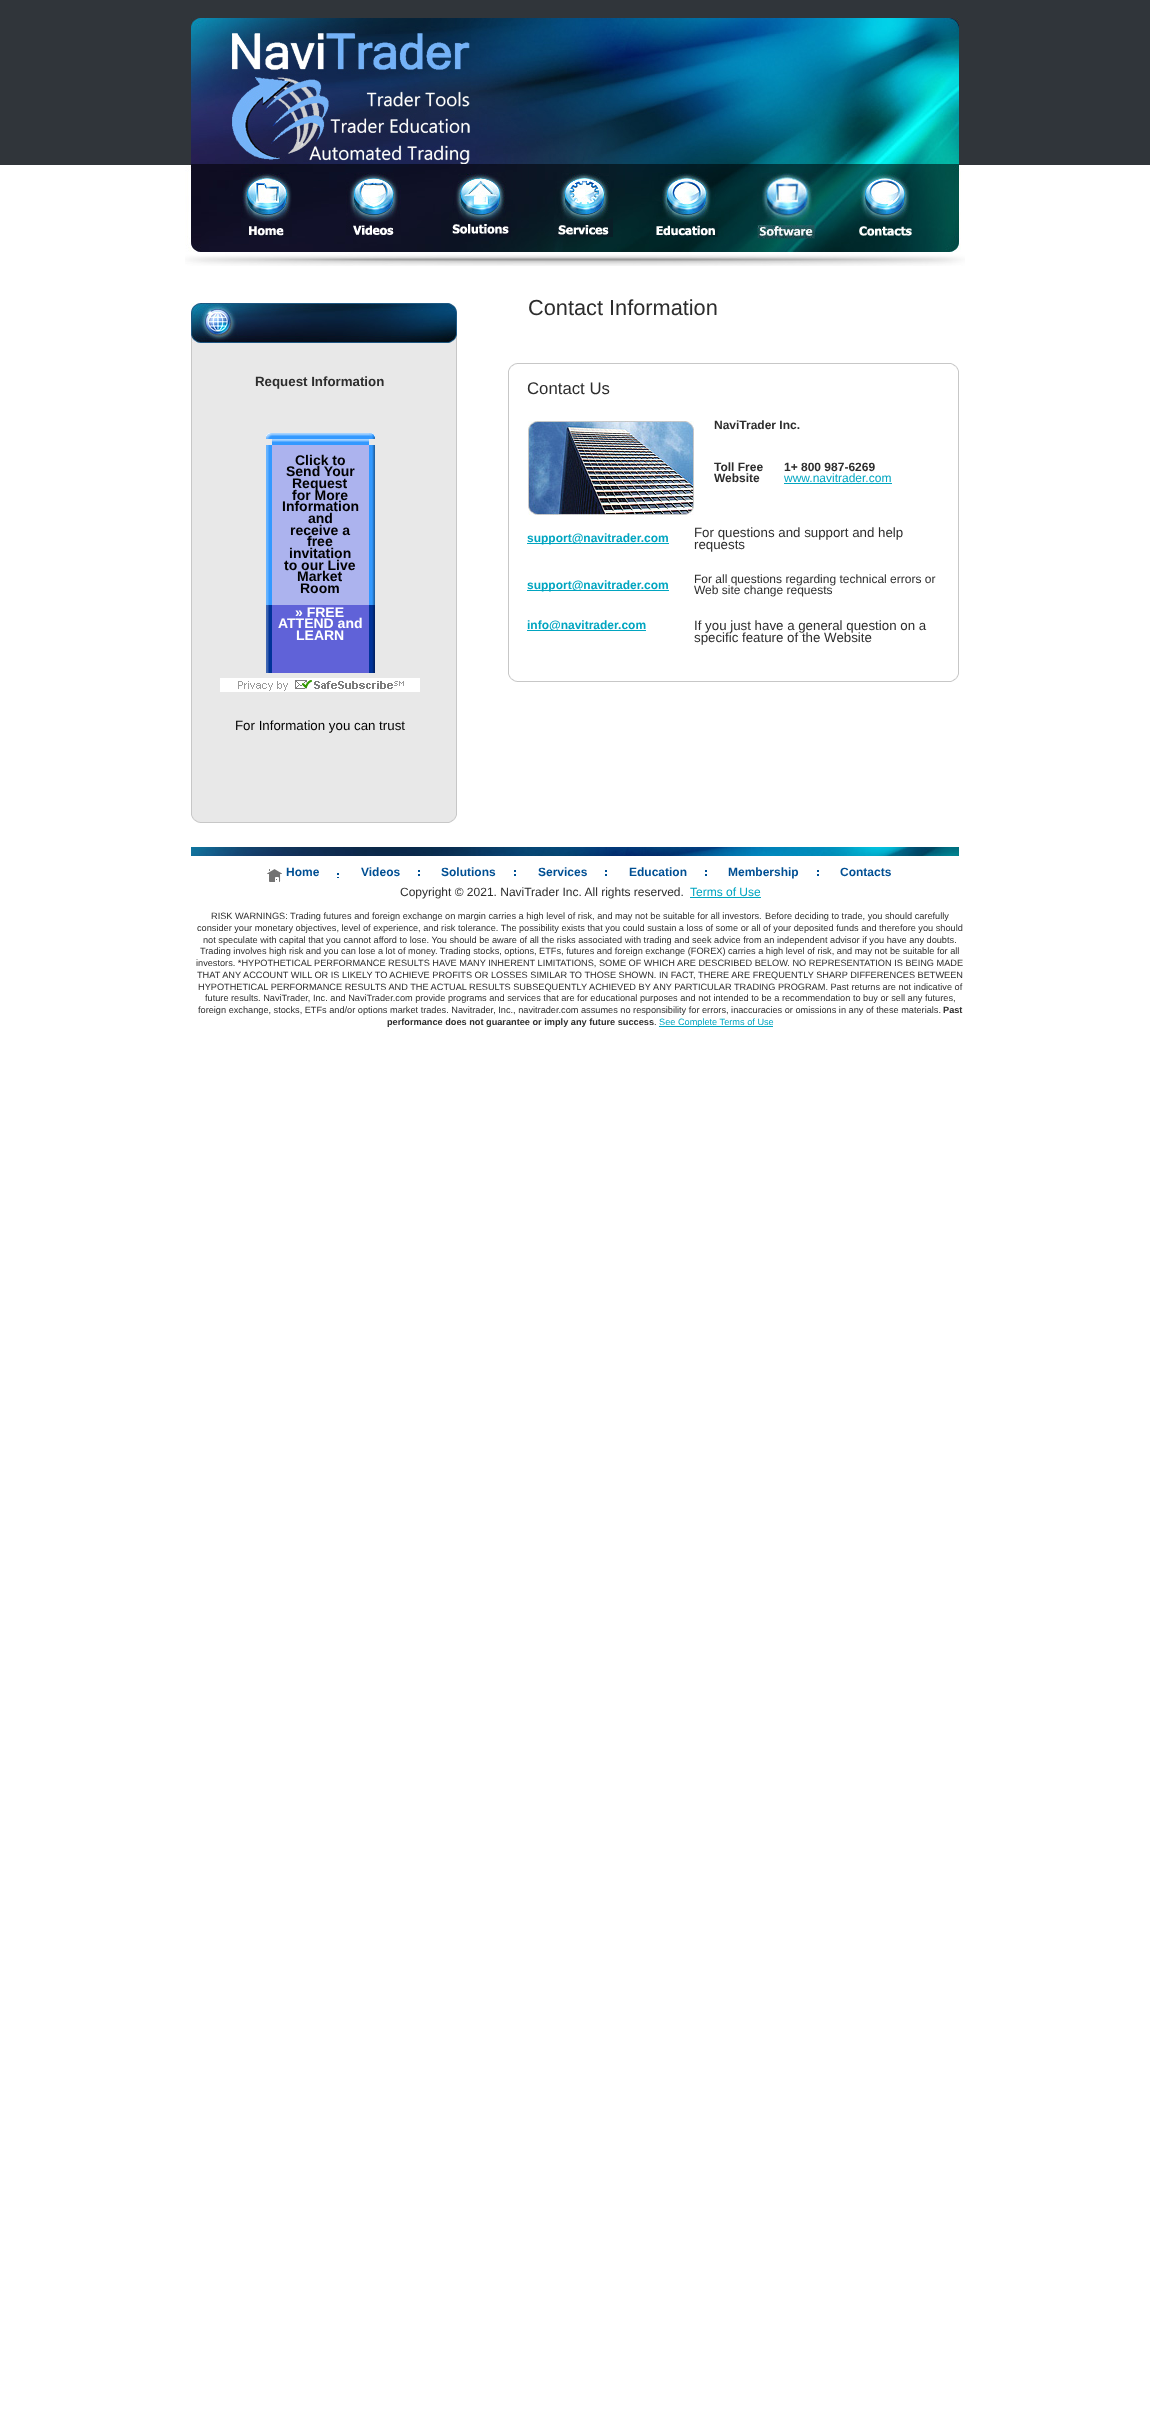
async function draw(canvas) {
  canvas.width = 1150
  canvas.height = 2416
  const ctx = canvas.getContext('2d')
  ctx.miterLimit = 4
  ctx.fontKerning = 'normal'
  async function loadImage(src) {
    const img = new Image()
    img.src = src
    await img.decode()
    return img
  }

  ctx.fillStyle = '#fff'
  ctx.fillRect(0, 0, 1150, 2416)
  ctx.fillStyle = '#30353a'
  ctx.fillRect(0, 0, 1150, 165)
  ctx.drawImage(await loadImage('image0.png'), 191, 18, 768, 146)
  ctx.drawImage(await loadImage('image1.png'), 185, 164, 780, 102)
  ctx.drawImage(await loadImage('image2.png'), 241, 173, 51, 64)
  ctx.drawImage(await loadImage('image3.png'), 346, 173, 55, 62)
  ctx.drawImage(await loadImage('image4.png'), 452, 173, 59, 64)
  ctx.drawImage(await loadImage('image5.png'), 554, 173, 59, 64)
  ctx.drawImage(await loadImage('image6.png'), 652, 173, 66, 64)
  ctx.drawImage(await loadImage('image7.png'), 757, 173, 59, 66)
  ctx.drawImage(await loadImage('image8.png'), 854, 173, 58, 63)
  ctx.fillStyle = '#e8e8e8'
  ctx.fillRect(192, 343, 264, 479)
  ctx.fillStyle = '#c7c7c7'
  ctx.fillRect(456, 343, 1, 480)
  ctx.fillRect(200, 822, 256, 1)
  ctx.fillRect(191, 343, 1, 479)
  ctx.drawImage(await loadImage('image9.png'), 449, 815, 8, 8)
  ctx.drawImage(await loadImage('image10.png'), 191, 815, 9, 8)
  ctx.drawImage(await loadImage('image11.png'), 191, 303, 266, 40)
  ctx.font = 'bold 13.3px Liberation Sans'
  ctx.fillStyle = '#2d2d2d'
  ctx.fillText('Request Information', 255, 386)
  ctx.drawImage(await loadImage('image12.png'), 266, 433, 6, 6)
  ctx.drawImage(await loadImage('image13.png'), 272, 433, 97, 12)
  ctx.drawImage(await loadImage('image14.png'), 369, 433, 6, 6)
  ctx.drawImage(await loadImage('image15.png'), 266, 445, 6, 160)
  ctx.fillStyle = '#acb3ee'
  ctx.fillRect(272, 445, 97, 160)
  ctx.font = 'bold 14px Liberation Sans'
  ctx.fillStyle = '#000'
  ctx.fillText('Click to', 295, 465)
  ctx.fillText('Send Your', 286, 476)
  ctx.fillText('Request', 292, 488)
  ctx.fillText('for More', 292, 500)
  ctx.fillText('Information', 282, 511)
  ctx.fillText('and', 308, 523)
  ctx.fillText('receive a', 290, 535)
  ctx.fillText('free', 307, 546)
  ctx.fillText('invitation', 289, 558)
  ctx.fillText('to our Live', 284, 570)
  ctx.fillText('Market', 297, 581)
  ctx.fillText('Room', 300, 593)
  ctx.drawImage(await loadImage('image16.png'), 369, 445, 6, 160)
  ctx.drawImage(await loadImage('image17.png'), 266, 605, 6, 54)
  ctx.fillStyle = '#6062d8'
  ctx.fillRect(272, 605, 97, 68)
  ctx.fillStyle = '#fff'
  ctx.fillText('» FREE', 295, 617)
  ctx.fillText('ATTEND and', 278, 628)
  ctx.fillText('LEARN', 296, 640)
  ctx.drawImage(await loadImage('image18.png'), 369, 605, 6, 54)
  ctx.drawImage(await loadImage('image19.png'), 266, 659, 6, 14)
  ctx.drawImage(await loadImage('image20.png'), 369, 659, 6, 14)
  ctx.fillRect(220, 678, 200, 14)
  ctx.drawImage(await loadImage('image21.png'), 238, 680, 166, 11)
  ctx.font = '13.3px Liberation Sans'
  ctx.fillStyle = '#000'
  ctx.fillText('For Information you can trust', 235, 730)
  ctx.font = '21.75px Liberation Sans'
  ctx.fillStyle = '#2d2d2d'
  ctx.fillText('Contact Information', 528, 315)
  ctx.fillStyle = '#c7c7c7'
  ctx.fillRect(517, 363, 442, 1)
  ctx.fillRect(958, 364, 1, 318)
  ctx.fillRect(517, 681, 441, 1)
  ctx.fillRect(508, 364, 1, 317)
  ctx.drawImage(await loadImage('image22.png'), 508, 363, 9, 8)
  ctx.drawImage(await loadImage('image23.png'), 951, 363, 8, 8)
  ctx.drawImage(await loadImage('image24.png'), 951, 674, 8, 8)
  ctx.drawImage(await loadImage('image25.png'), 508, 674, 9, 8)
  ctx.font = '16.75px Liberation Sans'
  ctx.fillStyle = '#2d2d2d'
  ctx.fillText('Contact Us', 527, 394)
  ctx.drawImage(await loadImage('image26.png'), 528, 421, 166, 94)
  ctx.font = 'bold 12px Liberation Sans'
  ctx.fillText('NaviTrader Inc.', 714, 429)
  ctx.fillText('Toll Free', 714, 471)
  ctx.fillText('1+ 800 987-6269', 784, 471)
  ctx.fillText('Website', 714, 482)
  ctx.font = '12px Liberation Sans'
  ctx.fillStyle = '#01a5c0'
  ctx.fillText('www.navitrader.com', 784, 482)
  ctx.fillRect(784, 483, 108, 1)
  ctx.fillRect(527, 543, 142, 1)
  ctx.font = 'bold 12px Liberation Sans'
  ctx.fillText('support@navitrader.com', 527, 542)
  ctx.font = '13.3px Liberation Sans'
  ctx.fillStyle = '#2d2d2d'
  ctx.fillText('For questions and support and help', 694, 537)
  ctx.fillText('requests', 694, 549)
  ctx.fillStyle = '#01a5c0'
  ctx.fillRect(527, 590, 142, 1)
  ctx.font = 'bold 12px Liberation Sans'
  ctx.fillText('support@navitrader.com', 527, 589)
  ctx.font = '12px Liberation Sans'
  ctx.fillStyle = '#2d2d2d'
  ctx.fillText('For all questions regarding technical errors or', 694, 583)
  ctx.fillText('Web site change requests', 694, 594)
  ctx.fillStyle = '#01a5c0'
  ctx.fillRect(527, 630, 119, 1)
  ctx.font = 'bold 12px Liberation Sans'
  ctx.fillText('info@navitrader.com', 527, 629)
  ctx.font = '13.3px Liberation Sans'
  ctx.fillStyle = '#2d2d2d'
  ctx.fillText('If you just have a general question on a', 694, 630)
  ctx.fillText('specific feature of the Website', 694, 642)
  ctx.drawImage(await loadImage('image27.png'), 191, 847, 768, 9)
  ctx.drawImage(await loadImage('image28.png'), 267, 869, 15, 13)
  ctx.font = 'bold 12px Liberation Sans'
  ctx.fillStyle = '#004f93'
  ctx.fillText('Home', 286, 876)
  ctx.drawImage(await loadImage('image29.png'), 337, 873, 2, 5)
  ctx.fillText('Videos', 361, 876)
  ctx.drawImage(await loadImage('image30.png'), 418, 870, 2, 6)
  ctx.fillText('Solutions', 441, 876)
  ctx.drawImage(await loadImage('image30.png'), 514, 870, 2, 6)
  ctx.fillText('Services', 538, 876)
  ctx.drawImage(await loadImage('image30.png'), 605, 870, 2, 6)
  ctx.fillText('Education', 629, 876)
  ctx.drawImage(await loadImage('image30.png'), 705, 870, 2, 6)
  ctx.fillText('Membership', 728, 876)
  ctx.drawImage(await loadImage('image30.png'), 817, 870, 2, 6)
  ctx.fillText('Contacts', 840, 876)
  ctx.font = '12px Liberation Sans'
  ctx.fillStyle = '#2d2d2d'
  ctx.fillText('Copyright © 2021. NaviTrader Inc. All rights reserved.', 400, 896)
  ctx.fillStyle = '#01a5c0'
  ctx.fillText('Terms of Use', 690, 896)
  ctx.fillRect(690, 897, 71, 1)
  ctx.font = '9.2px Liberation Sans'
  ctx.fillStyle = '#2d2d2d'
  ctx.fillText('RISK WARNINGS: Trading futures and foreign exchange on margin carries a high level of risk, and may not be suitable for all investors.', 211, 919)
  ctx.fillText('Before deciding to trade, you should carefully', 765, 919)
  ctx.fillText('consider your monetary objectives, level of experience, and risk tolerance. The', 197, 931)
  ctx.fillText('possibility exists that you could sustain a loss of some or all of your deposited funds and therefore you should', 519, 931)
  ctx.fillText('not speculate with capital that you cannot afford to lose. You should be aware of all the risks associated with trading and seek advice from an independent advisor if you have any doubts.', 203, 943)
  ctx.fillText('Trading involves high risk and you can lose a lot of money. Trading stocks, options, ETFs, futures and foreign exchange (FOREX) carries a high level of risk, and may not be suitable for all', 200, 954)
  ctx.fillText('investors. *HYPOTHETICAL PERFORMANCE RESULTS HAVE MANY INHERENT LIMITATIONS, SOME OF WHICH ARE DESCRIBED BELOW. NO REPRESENTATION IS BEING MADE', 196, 966)
  ctx.fillText('THAT ANY', 197, 978)
  ctx.fillText('ACCOUNT WILL OR IS LIKELY TO ACHIEVE PROFITS OR LOSSES SIMILAR TO THOSE SHOWN. IN FACT, THERE ARE FREQUENTLY SHARP DIFFERENCES BETWEEN', 243, 978)
  ctx.fillText('HYPOTHETICAL PERFORMANCE RESULTS AND THE ACTUAL', 198, 990)
  ctx.fillText('RESULTS SUBSEQUENTLY', 469, 990)
  ctx.fillText('ACHIEVED BY', 589, 990)
  ctx.fillText('ANY PARTICULAR TRADING PROGRAM. Past returns are not indicative of', 653, 990)
  ctx.fillText('future results. NaviTrader, Inc. and NaviTrader.com provide programs and services that are for educational purposes and not intended to be a recommendation to buy or sell any futures,', 205, 1001)
  ctx.fillText('foreign exchange, stocks, ETFs and/or options market trades. Navitrader, Inc., navitrader.com assumes no responsibility for errors, inaccuracies or omissions in any of these materials.', 198, 1013)
  ctx.font = 'bold 9.2px Liberation Sans'
  ctx.fillText('Past', 943, 1013)
  ctx.fillText('performance does not guarantee or imply any future success', 387, 1025)
  ctx.font = '9.2px Liberation Sans'
  ctx.fillText('.', 654, 1025)
  ctx.fillStyle = '#01a5c0'
  ctx.fillRect(659, 1026, 114, 1)
  ctx.fillText('See Complete Terms of Use', 659, 1025)
}

draw(document.querySelector('canvas'))
